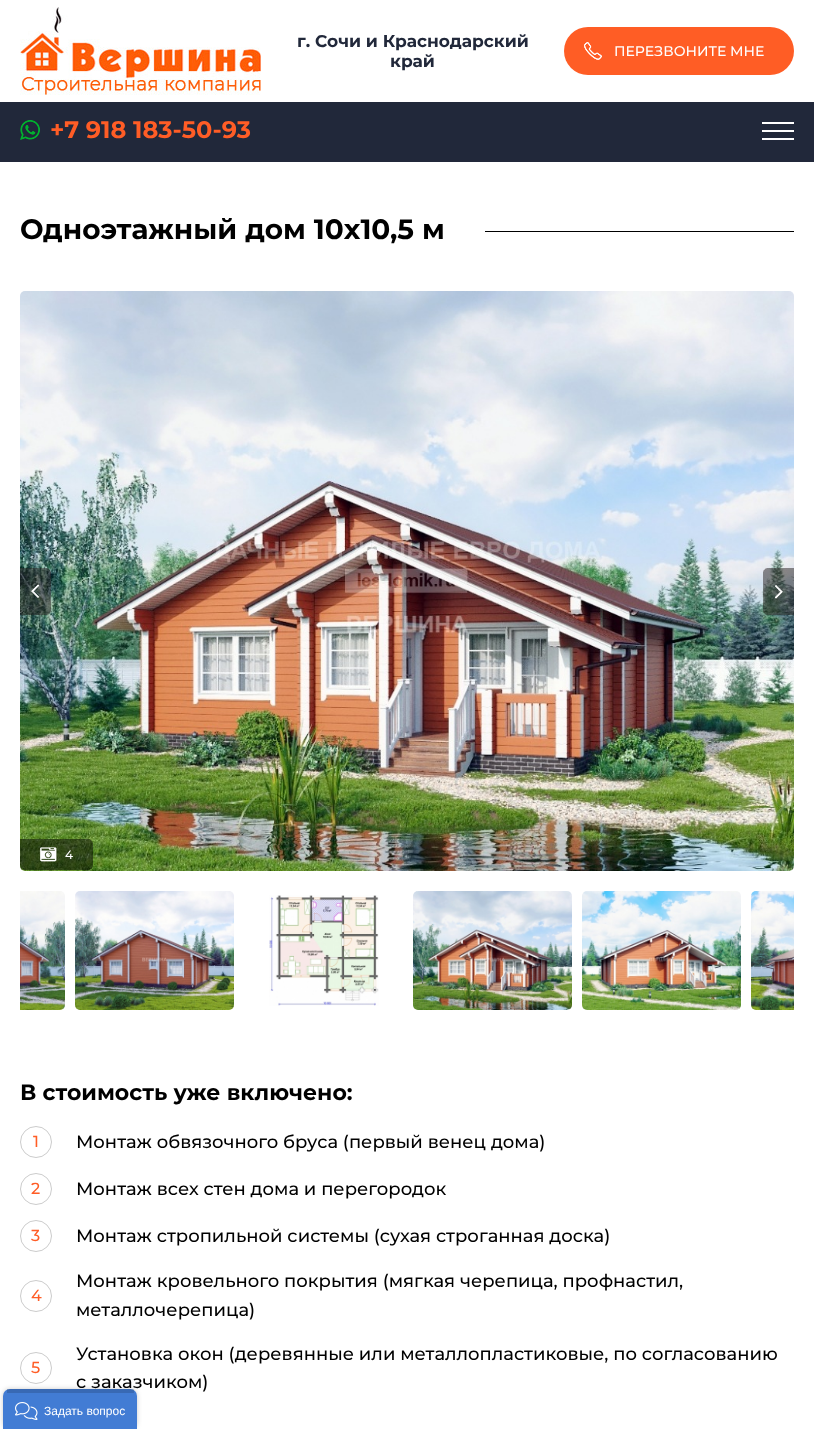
async function draw(canvas) {
  canvas.width = 814
  canvas.height = 1429
  const ctx = canvas.getContext('2d')
  ctx.miterLimit = 4
  ctx.fontKerning = 'normal'
  async function loadImage(src) {
    const img = new Image()
    img.src = src
    await img.decode()
    return img
  }

  ctx.fillStyle = '#fff'
  ctx.fillRect(0, 0, 814, 1429)
  ctx.drawImage(await loadImage('image0.png'), 20, 7, 241, 88)
  ctx.font = 'bold 17px Montserrat'
  ctx.fillStyle = '#21283a'
  ctx.fillText('г. Сочи и Краснодарский', 297, 47)
  ctx.fillText('край', 390, 67)
  ctx.fillStyle = '#ff5d25'
  ctx.beginPath()
  ctx.roundRect(564, 27, 230, 48, 24)
  ctx.fill()
  ctx.drawImage(await loadImage('image1.png'), 584, 42, 18, 18)
  ctx.font = '500 14px Montserrat'
  ctx.fillStyle = '#fff'
  ctx.fillText('ПЕРЕЗВОНИТЕ МНЕ', 614, 56)
  ctx.fillStyle = '#21283a'
  ctx.fillRect(0, 102, 814, 60)
  ctx.drawImage(await loadImage('image2.png'), 20, 120, 20, 20)
  ctx.font = 'bold 24px Montserrat'
  ctx.fillStyle = '#ff5d26'
  ctx.fillText('+7 918 183-50-93', 50, 138)
  ctx.fillStyle = '#fff'
  ctx.fillRect(762, 122, 32, 2)
  ctx.fillRect(762, 130, 32, 2)
  ctx.fillRect(762, 138, 32, 2)
  ctx.fillStyle = '#000'
  ctx.fillRect(485, 231, 309, 1)
  ctx.font = 'bold 28px Montserrat'
  ctx.fillText('Одноэтажный дом 10х10,5 м', 20, 239)
  ctx.drawImage(await loadImage('image3.png'), 20, 291, 774, 580)
  ctx.drawImage(await loadImage('image4.png'), 20, 568, 31, 47)
  ctx.drawImage(await loadImage('image5.png'), 763, 568, 31, 47)
  ctx.fillStyle = '#00000080'
  ctx.beginPath()
  ctx.roundRect(20, 839, 73, 31, [0, 5, 5, 5])
  ctx.fill()
  ctx.drawImage(await loadImage('image6.png'), 40, 847, 17, 15)
  ctx.font = '500 12px Montserrat'
  ctx.fillStyle = '#fff'
  ctx.fillText('4', 65, 859)
  ctx.drawImage(await loadImage('image7.png'), 20, 891, 45, 119)
  ctx.drawImage(await loadImage('image8.png'), 75, 891, 159, 119)
  ctx.drawImage(await loadImage('image9.png'), 269, 895, 110, 111)
  ctx.drawImage(await loadImage('image10.png'), 413, 891, 159, 119)
  ctx.drawImage(await loadImage('image11.png'), 582, 891, 159, 119)
  ctx.drawImage(await loadImage('image12.png'), 751, 891, 43, 119)
  ctx.font = 'bold 22px Montserrat'
  ctx.fillStyle = '#000'
  ctx.fillText('В стоимость уже включено:', 20, 1100)
  ctx.beginPath()
  ctx.arc(36, 1142, 15.5, 0, 2 * Math.PI)
  ctx.strokeStyle = '#ccc'
  ctx.stroke()
  ctx.font = '500 16px Montserrat'
  ctx.fillStyle = '#ff5d26'
  ctx.fillText('1', 33, 1147)
  ctx.font = '500 18px Montserrat'
  ctx.fillStyle = '#000'
  ctx.fillText('Монтаж обвязочного бруса (первый венец дома)', 76, 1148)
  ctx.beginPath()
  ctx.arc(36, 1189, 15.5, 0, 2 * Math.PI)
  ctx.stroke()
  ctx.font = '500 16px Montserrat'
  ctx.fillStyle = '#ff5d26'
  ctx.fillText('2', 31, 1194)
  ctx.font = '500 18px Montserrat'
  ctx.fillStyle = '#000'
  ctx.fillText('Монтаж всех стен дома и перегородок', 76, 1195)
  ctx.beginPath()
  ctx.arc(36, 1236, 15.5, 0, 2 * Math.PI)
  ctx.stroke()
  ctx.font = '500 16px Montserrat'
  ctx.fillStyle = '#ff5d26'
  ctx.fillText('3', 31, 1241)
  ctx.font = '500 18px Montserrat'
  ctx.fillStyle = '#000'
  ctx.fillText('Монтаж стропильной системы (сухая строганная доска)', 76, 1242)
  ctx.beginPath()
  ctx.arc(36, 1296, 15.5, 0, 2 * Math.PI)
  ctx.stroke()
  ctx.font = '500 16px Montserrat'
  ctx.fillStyle = '#ff5d26'
  ctx.fillText('4', 31, 1301)
  ctx.font = '500 18px Montserrat'
  ctx.fillStyle = '#000'
  ctx.fillText('Монтаж кровельного покрытия (мягкая черепица, профнастил,', 76, 1287)
  ctx.fillText('металлочерепица)', 76, 1316)
  ctx.beginPath()
  ctx.arc(36, 1368, 15.5, 0, 2 * Math.PI)
  ctx.stroke()
  ctx.font = '500 16px Montserrat'
  ctx.fillStyle = '#ff5d26'
  ctx.fillText('5', 31, 1373)
  ctx.font = '500 18px Montserrat'
  ctx.fillStyle = '#000'
  ctx.fillText('Установка окон (деревянные или металлопластиковые, по согласованию', 76, 1360)
  ctx.fillText('с заказчиком)', 76, 1388)
  ctx.fillStyle = '#00000033'
  ctx.filter = 'blur(2.5px)'
  ctx.beginPath()
  ctx.roundRect(3, 1389, 134, 40, 7)
  ctx.fill()
  ctx.filter = 'none'
  ctx.fillStyle = '#427cd4'
  ctx.beginPath()
  ctx.roundRect(3, 1389, 134, 40, [7, 7, 0, 0])
  ctx.fill()
  ctx.fillStyle = '#00000026'
  ctx.fillRect(7, 1389, 127, 4)
  ctx.drawImage(await loadImage('image13.png'), 15, 1402, 23, 18)
  ctx.font = '12px Liberation Sans'
  ctx.fillStyle = '#fff'
  ctx.fillText('Задать вопрос', 44, 1415)
}

draw(document.querySelector('canvas'))
